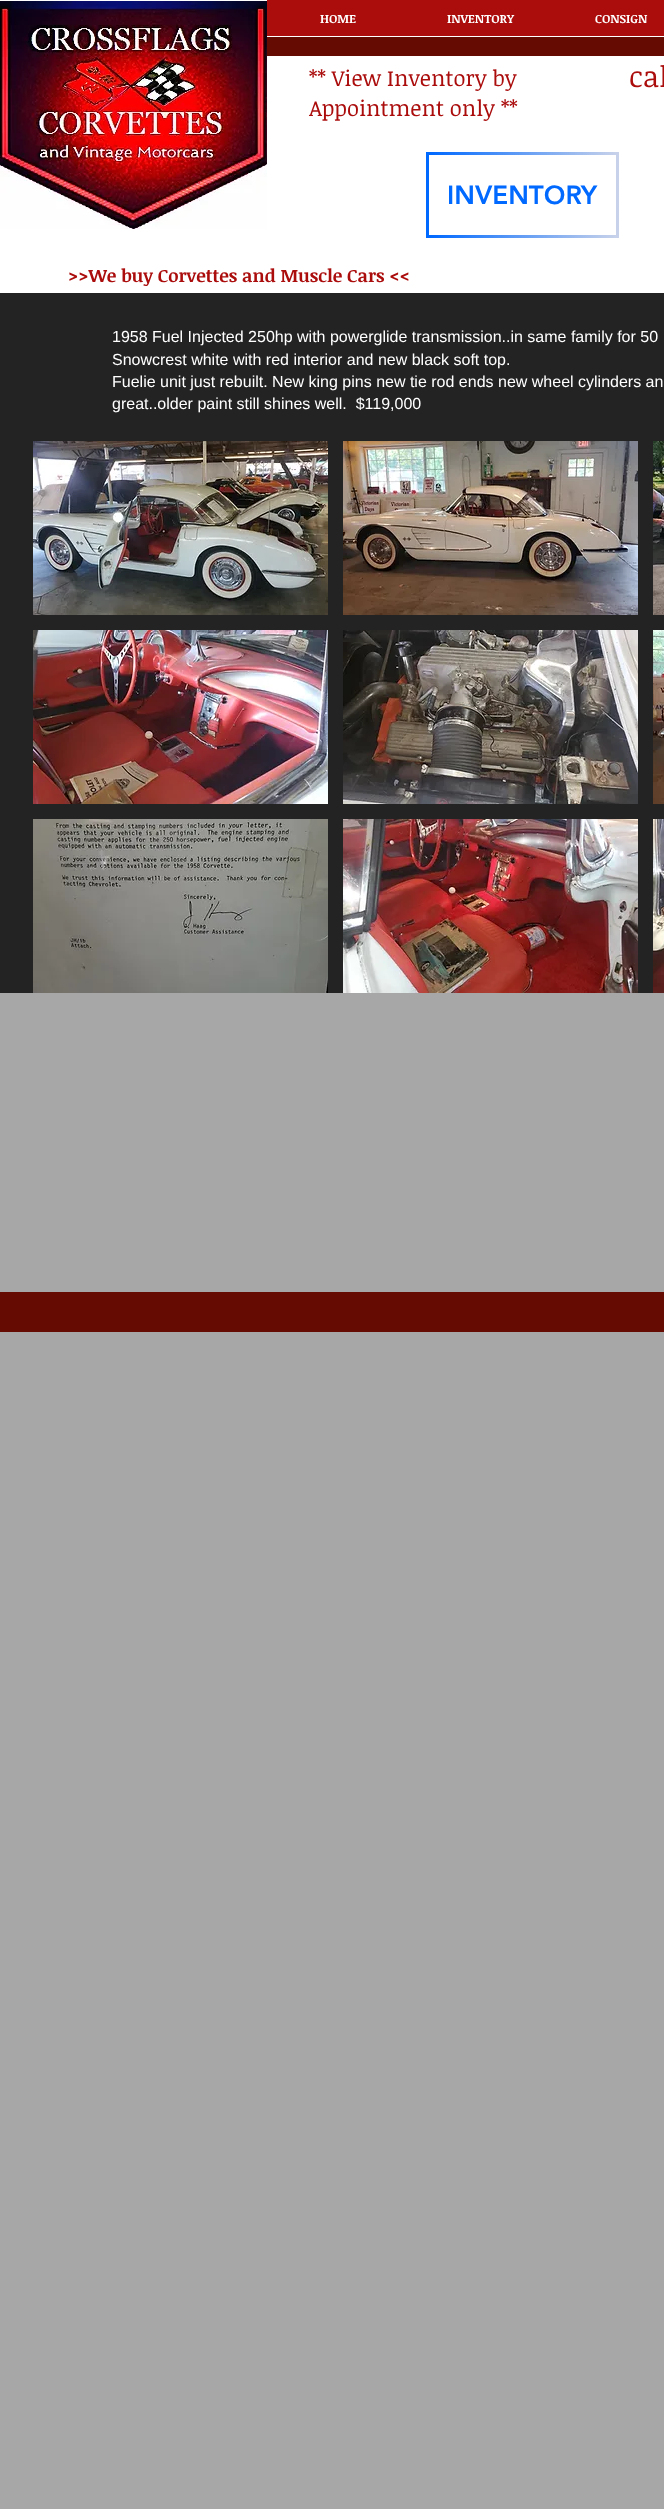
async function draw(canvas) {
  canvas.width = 664
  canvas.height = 2509
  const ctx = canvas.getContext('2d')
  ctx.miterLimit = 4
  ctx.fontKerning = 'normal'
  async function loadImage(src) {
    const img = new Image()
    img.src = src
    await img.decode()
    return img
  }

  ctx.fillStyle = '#a7a7a7'
  ctx.fillRect(0, 0, 664, 2509)
  ctx.fillStyle = '#fff'
  ctx.fillRect(0, 0, 664, 293)
  ctx.drawImage(await loadImage('image0.png'), 0, 1, 267, 228)
  ctx.fillStyle = '#ab0d0d'
  ctx.fillRect(267, 0, 397, 36)
  ctx.font = 'bold 12px Noticia Text'
  ctx.fillStyle = '#fff'
  ctx.fillText('HOME', 320, 23)
  ctx.fillText('INVENTORY', 447, 23)
  ctx.fillText('CONSIGN', 595, 23)
  ctx.fillStyle = '#660b02'
  ctx.fillRect(267, 37, 397, 19)
  ctx.font = '22px Noticia Text'
  ctx.fillStyle = '#ab0d0d'
  ctx.fillText('** View Inventory by', 309, 86)
  ctx.fillText('Appointment only **', 309, 116)
  ctx.font = '29px Noticia Text'
  ctx.fillText('cal', 629, 87)
  ctx.drawImage(await loadImage('image1.png'), 426, 152, 193, 86)
  ctx.font = '900 26px "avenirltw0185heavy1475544"'
  ctx.fillStyle = '#0069ff'
  ctx.fillText('INVENTORY', 447, 204)
  ctx.font = 'bold 18px Noticia Text'
  ctx.fillStyle = '#ab0d0d'
  ctx.fillText('>>We buy Corvettes and Muscle Cars <<', 68, 282)
  ctx.fillStyle = '#232323'
  ctx.fillRect(0, 293, 664, 700)
  ctx.font = '16px Liberation Sans'
  ctx.fillStyle = '#fff'
  ctx.fillText('1958 Fuel Injected 250hp with powerglide transmission..in same family for 50', 112, 342)
  ctx.fillText('Snowcrest white with red interior and new black soft top.', 112, 365)
  ctx.fillText('Fuelie unit just rebuilt. New king pins new tie rod ends new wheel cylinders an', 112, 387)
  ctx.fillText('great..older paint still shines well.  $119,000', 112, 409)
  ctx.drawImage(await loadImage('image2.png'), 33, 441, 295, 174)
  ctx.drawImage(await loadImage('image3.png'), 343, 441, 295, 174)
  ctx.drawImage(await loadImage('image4.png'), 653, 441, 11, 174)
  ctx.drawImage(await loadImage('image5.png'), 33, 630, 295, 174)
  ctx.drawImage(await loadImage('image6.png'), 343, 630, 295, 174)
  ctx.drawImage(await loadImage('image7.png'), 653, 630, 11, 174)
  ctx.drawImage(await loadImage('image8.png'), 33, 819, 295, 174)
  ctx.drawImage(await loadImage('image9.png'), 343, 819, 295, 174)
  ctx.drawImage(await loadImage('image10.png'), 653, 819, 11, 174)
  ctx.fillStyle = '#660b02'
  ctx.fillRect(0, 1292, 664, 40)
}

draw(document.querySelector('canvas'))
